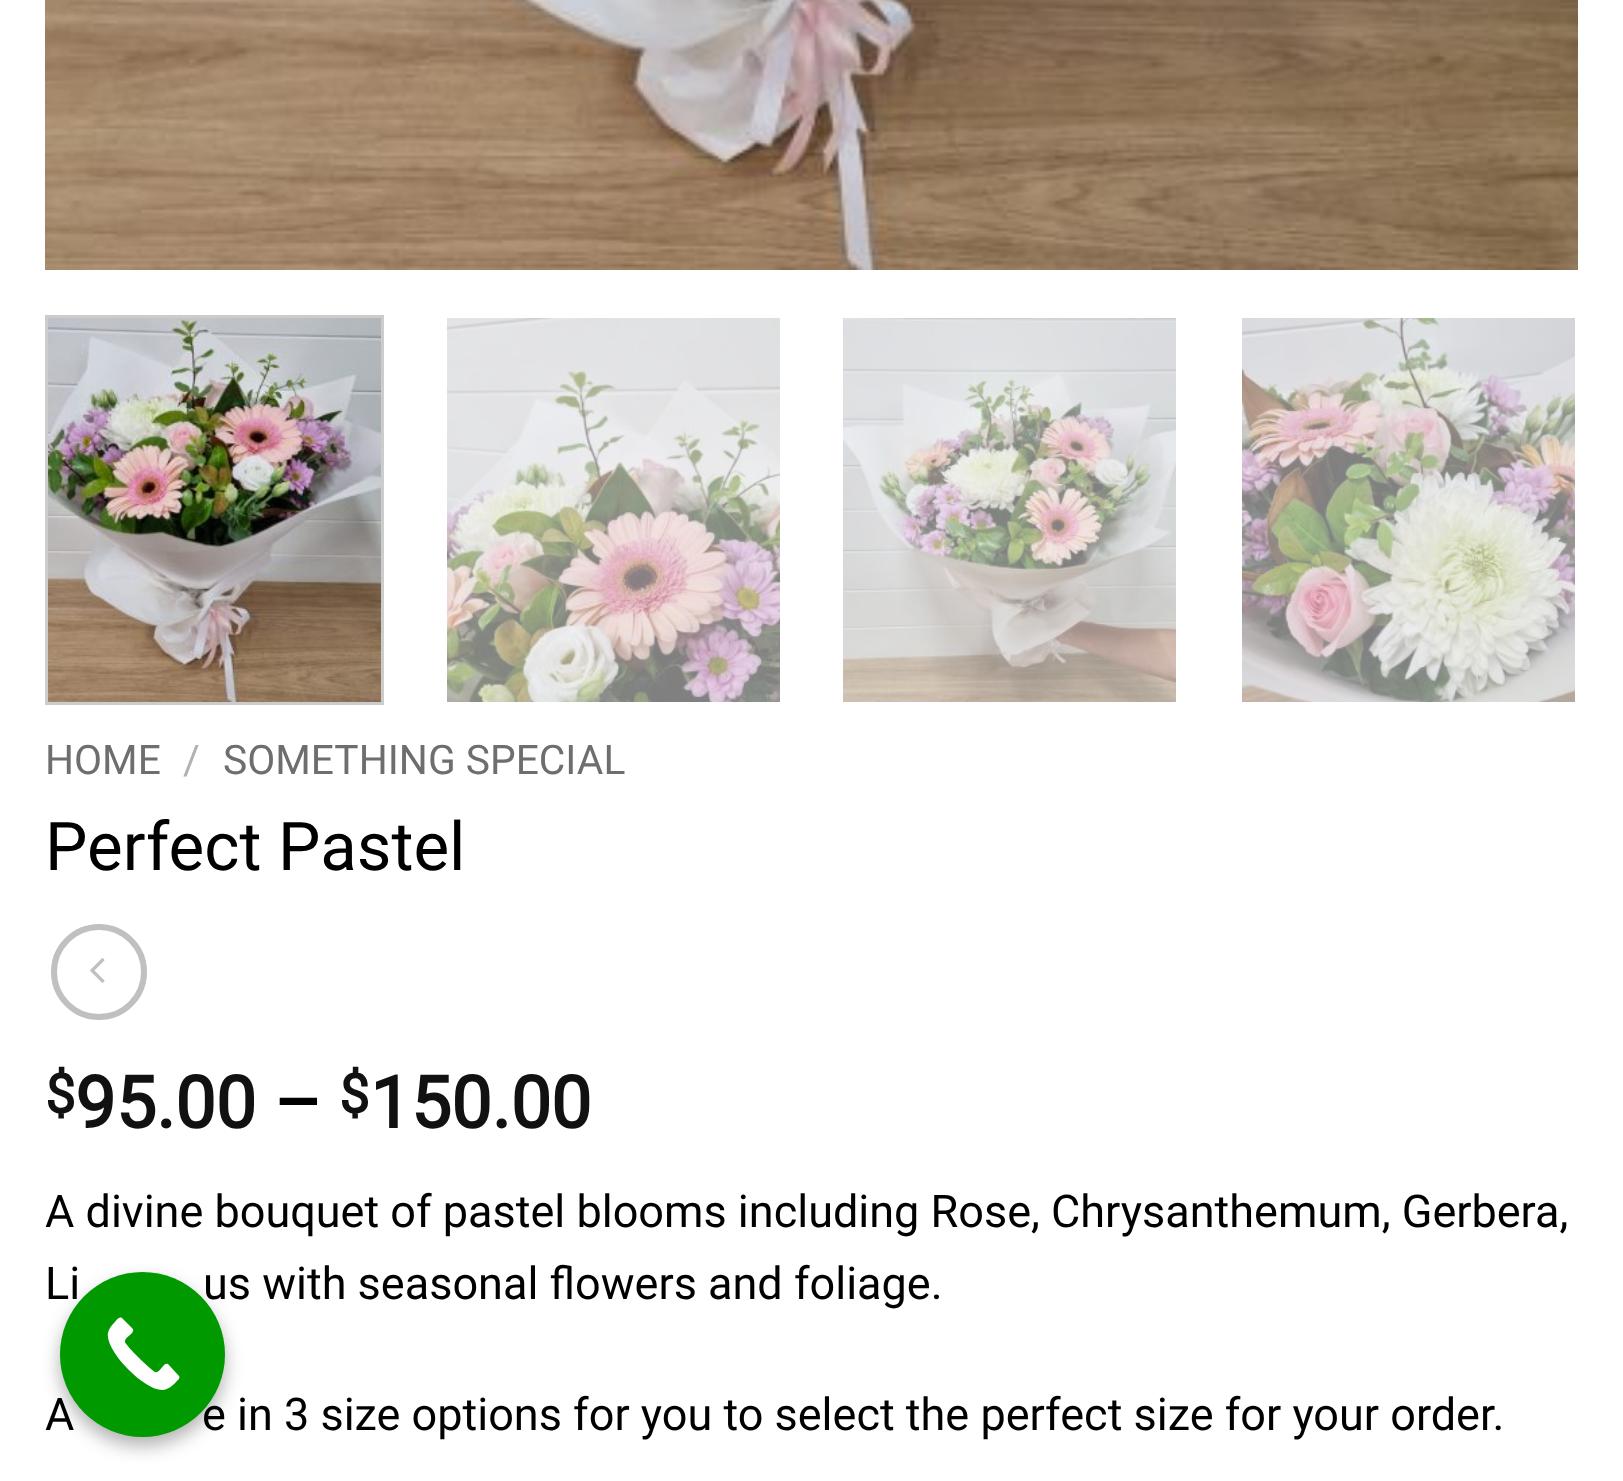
async function draw(canvas) {
  canvas.width = 1623
  canvas.height = 1481
  const ctx = canvas.getContext('2d')
  ctx.miterLimit = 4
  ctx.fontKerning = 'normal'
  async function loadImage(src) {
    const img = new Image()
    img.src = src
    await img.decode()
    return img
  }

  ctx.fillStyle = '#fff'
  ctx.fillRect(0, 0, 1623, 1481)
  ctx.drawImage(await loadImage('image0.png'), 45, 0, 1533, 270)
  ctx.strokeStyle = '#ccc'
  ctx.lineWidth = 3
  ctx.strokeRect(46.5, 316.5, 336, 387)
  ctx.drawImage(await loadImage('image1.png'), 48, 318, 333, 384)
  ctx.drawImage(await loadImage('image2.png'), 447, 318, 333, 384)
  ctx.drawImage(await loadImage('image3.png'), 843, 318, 333, 384)
  ctx.drawImage(await loadImage('image4.png'), 1242, 318, 333, 384)
  ctx.font = '40.75px Roboto'
  ctx.fillStyle = '#6e6e6e'
  ctx.fillText('HOME', 45, 774)
  ctx.fillStyle = '#b2b2b2'
  ctx.fillText('/', 183, 774)
  ctx.fillStyle = '#6e6e6e'
  ctx.fillText('SOMETHING SPECIAL', 223, 774)
  ctx.font = '67.25px Roboto'
  ctx.fillStyle = '#000'
  ctx.fillText('Perfect Pastel', 45, 870)
  ctx.beginPath()
  ctx.arc(99, 972, 45, 0, 2 * Math.PI)
  ctx.strokeStyle = '#c0c0c0'
  ctx.lineWidth = 6
  ctx.stroke()
  ctx.drawImage(await loadImage('image5.png'), 90, 958, 15, 25)
  ctx.font = 'bold 54px Roboto'
  ctx.fillStyle = '#111'
  ctx.fillText('$', 45, 1113)
  ctx.font = 'bold 72px Roboto'
  ctx.fillText('95.00', 75, 1128)
  ctx.fillStyle = '#000'
  ctx.fillText('–', 274, 1128)
  ctx.font = 'bold 54px Roboto'
  ctx.fillStyle = '#111'
  ctx.fillText('$', 339, 1113)
  ctx.font = 'bold 72px Roboto'
  ctx.fillText('150.00', 370, 1128)
  ctx.font = '45px Roboto'
  ctx.fillStyle = '#000'
  ctx.fillText('A divine bouquet of pastel blooms including Rose, Chrysanthemum, Gerbera,', 45, 1227)
  ctx.fillText('Li', 45, 1299)
  ctx.fillText('us with seasonal flowers and foliage.', 203, 1299)
  ctx.fillText('A', 45, 1430)
  ctx.fillText('e in 3 size options for you to select the perfect size for your order.', 202, 1430)
  ctx.fillStyle = '#0000004d'
  ctx.filter = 'blur(9px)'
  ctx.beginPath()
  ctx.roundRect(60, 1281, 165, 165, 82.5)
  ctx.fill()
  ctx.filter = 'none'
  ctx.fillStyle = '#090'
  ctx.beginPath()
  ctx.arc(142.5, 1354.5, 82.5, 0, 2 * Math.PI)
  ctx.fill()
  ctx.fillStyle = '#fff'
  ctx.beginPath()
  ctx.moveTo(179, 1379)
  ctx.bezierCurveTo(174, 1384, 170, 1389, 163, 1390)
  ctx.bezierCurveTo(145, 1391, 109, 1354, 108, 1337)
  ctx.bezierCurveTo(107, 1332, 110, 1327, 114, 1323)
  ctx.bezierCurveTo(116, 1321, 119, 1316, 122, 1318)
  ctx.lineTo(133, 1329)
  ctx.bezierCurveTo(135, 1334, 124, 1337, 125, 1342)
  ctx.bezierCurveTo(127, 1347, 150, 1369, 155, 1372)
  ctx.bezierCurveTo(160, 1374, 163, 1362, 168, 1364)
  ctx.lineTo(179, 1376)
  ctx.bezierCurveTo(180, 1377, 179, 1378, 179, 1379)
  ctx.closePath()
  ctx.fill()
}

draw(document.querySelector('canvas'))
